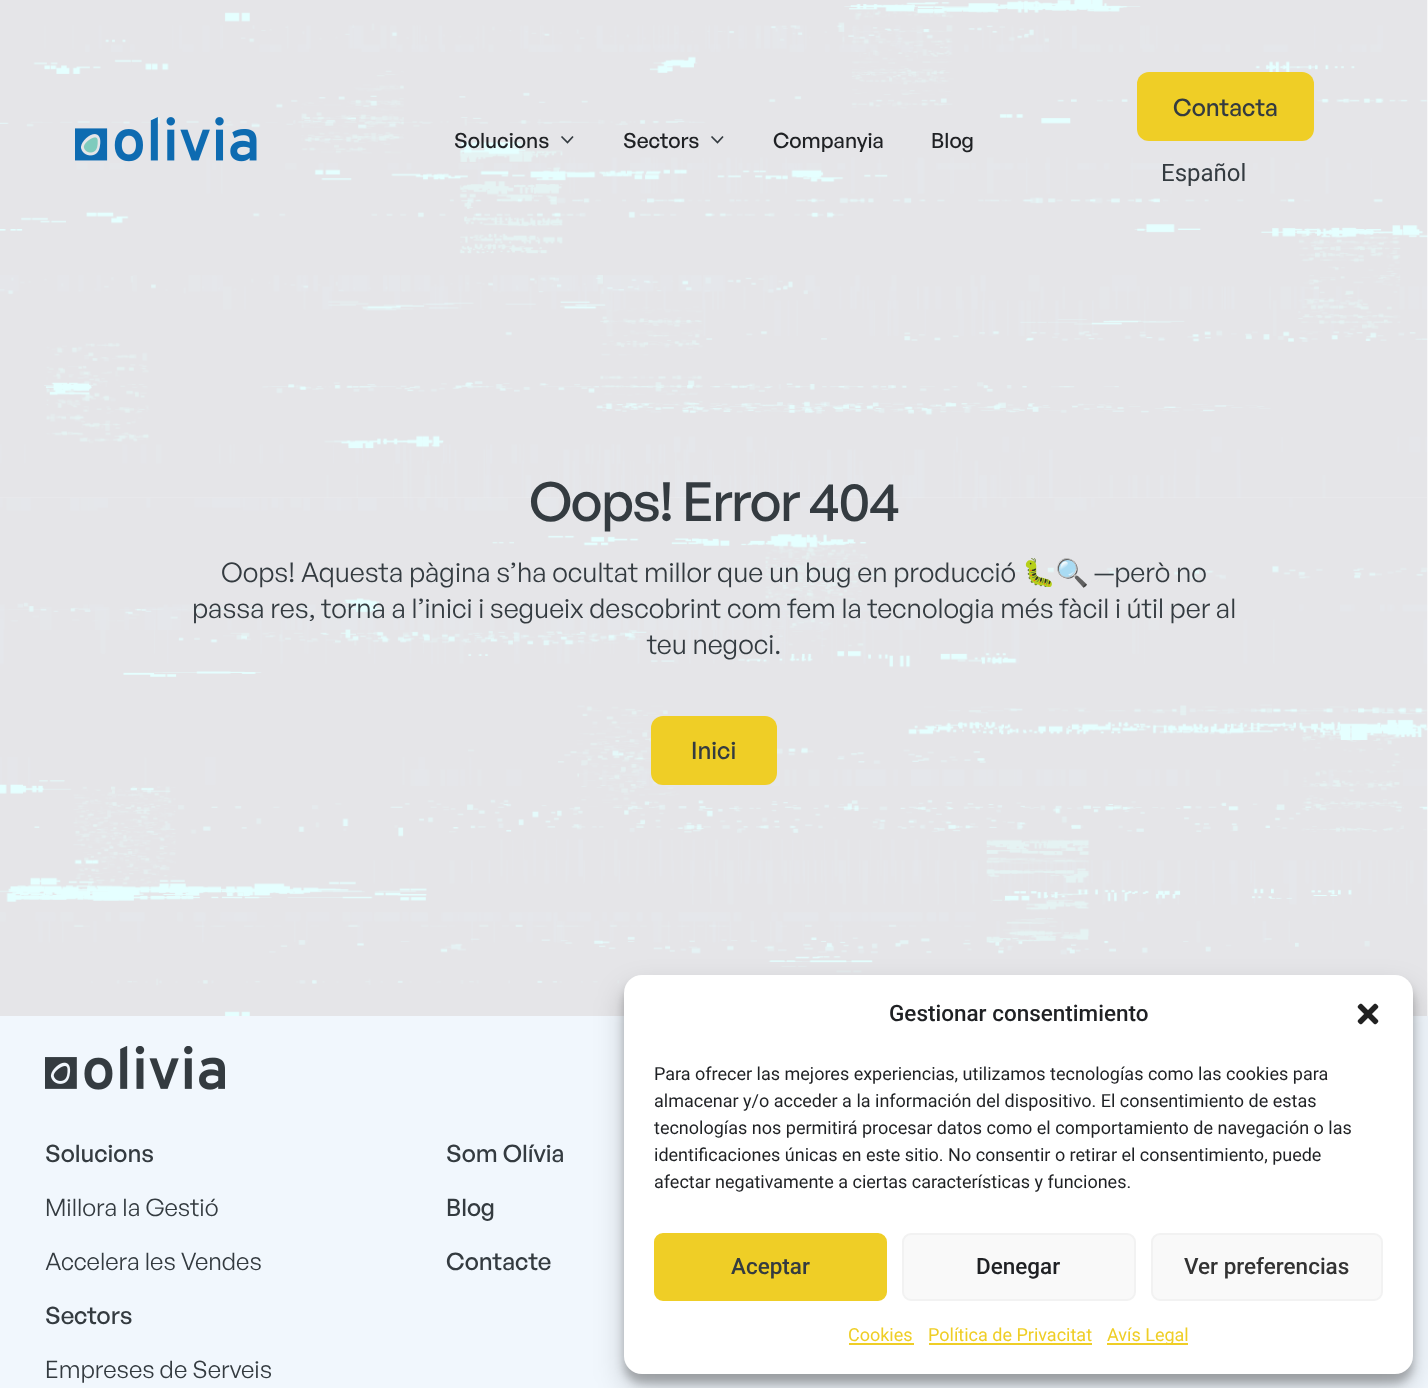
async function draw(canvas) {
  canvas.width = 1428
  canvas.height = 1388
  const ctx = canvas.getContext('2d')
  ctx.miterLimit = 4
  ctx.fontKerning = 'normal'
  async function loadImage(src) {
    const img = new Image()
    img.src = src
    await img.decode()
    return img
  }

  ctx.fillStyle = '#fff'
  ctx.fillRect(0, 0, 1428, 1388)
  ctx.drawImage(await loadImage('image0.png'), 0, 0, 1428, 1016)
  ctx.drawImage(await loadImage('image1.png'), 75, 117, 182, 45)
  ctx.font = '500 21px General Sans'
  ctx.fillStyle = '#1f2124'
  ctx.fillText('Solucions', 454, 148)
  ctx.beginPath()
  ctx.moveTo(561.5, 136.5)
  ctx.lineTo(567.5, 142.5)
  ctx.lineTo(573, 136.5)
  ctx.strokeStyle = '#343b40'
  ctx.lineWidth = 1.7
  ctx.stroke()
  ctx.fillText('Sectors', 623, 148)
  ctx.beginPath()
  ctx.moveTo(711.5, 136.5)
  ctx.lineTo(717.5, 142.5)
  ctx.lineTo(723, 136.5)
  ctx.stroke()
  ctx.fillText('Companyia', 773, 148)
  ctx.fillText('Blog', 931, 148)
  ctx.fillStyle = '#efce26'
  ctx.beginPath()
  ctx.roundRect(1137, 72, 177, 69, 12)
  ctx.fill()
  ctx.font = '500 24px General Sans'
  ctx.fillStyle = '#343b40'
  ctx.fillText('Contacta', 1173, 116)
  ctx.font = '24px Roboto'
  ctx.fillText('Español', 1161, 181)
  ctx.letterSpacing = '-1.5px'
  ctx.font = '500 54px General Sans'
  ctx.fillText('Oops! Error 404', 529, 521)
  ctx.letterSpacing = '0px'
  ctx.font = '27px General Sans'
  ctx.fillText('Oops! Aquesta pàgina s’ha ocultat millor que un bug en producció', 221, 582)
  ctx.font = '27px Noto Color Emoji'
  ctx.fillText('🐛🔍', 1022, 582)
  ctx.font = '27px General Sans'
  ctx.fillText('—però no', 1094, 582)
  ctx.fillText('passa res, torna a l’inici i segueix descobrint com fem la tecnologia més fàcil i útil per al', 192, 618)
  ctx.fillText('teu negoci.', 647, 654)
  ctx.fillStyle = '#efce26'
  ctx.beginPath()
  ctx.roundRect(651, 716, 126, 69, 12)
  ctx.fill()
  ctx.font = '500 24px General Sans'
  ctx.fillStyle = '#343b40'
  ctx.fillText('Inici', 691, 759)
  ctx.fillStyle = '#f1f7fd'
  ctx.fillRect(0, 1016, 1428, 372)
  ctx.drawImage(await loadImage('image2.png'), 45, 1046, 180, 44)
  ctx.fillStyle = '#343b40'
  ctx.fillText('Solucions', 45, 1162)
  ctx.font = '24px General Sans'
  ctx.fillText('Millora la Gestió', 45, 1216)
  ctx.fillText('Accelera les Vendes', 45, 1270)
  ctx.font = '500 24px General Sans'
  ctx.fillText('Sectors', 45, 1324)
  ctx.font = '24px General Sans'
  ctx.fillText('Empreses de Serveis', 45, 1378)
  ctx.font = '500 24px General Sans'
  ctx.fillText('Som Olívia', 446, 1162)
  ctx.fillText('Blog', 446, 1216)
  ctx.fillText('Contacte', 446, 1270)
  ctx.fillStyle = '#0000003b'
  ctx.filter = 'blur(4.5px)'
  ctx.beginPath()
  ctx.roundRect(624, 984, 789, 399, 18)
  ctx.fill()
  ctx.filter = 'none'
  ctx.fillStyle = '#00000030'
  ctx.filter = 'blur(15px)'
  ctx.beginPath()
  ctx.roundRect(624, 990, 789, 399, 18)
  ctx.fill()
  ctx.filter = 'none'
  ctx.fillStyle = '#fff'
  ctx.beginPath()
  ctx.roundRect(624, 975, 789, 399, 18)
  ctx.fill()
  ctx.font = '500 22.5px Roboto'
  ctx.fillStyle = '#1f2124'
  ctx.fillText('Gestionar consentimiento', 889, 1021)
  ctx.drawImage(await loadImage('image3.png'), 1357, 1003, 22, 22)
  ctx.font = '18px Roboto'
  ctx.fillText('Para ofrecer las mejores experiencias, utilizamos tecnologías como las cookies para', 654, 1080)
  ctx.fillText('almacenar y/o acceder a la información del dispositivo. El consentimiento de estas', 654, 1107)
  ctx.fillText('tecnologías nos permitirá procesar datos como el comportamiento de navegación o las', 654, 1134)
  ctx.fillText('identificaciones únicas en este sitio. No consentir o retirar el consentimiento, puede', 654, 1161)
  ctx.fillText('afectar negativamente a ciertas características y funciones.', 654, 1188)
  ctx.fillStyle = '#efce26'
  ctx.beginPath()
  ctx.roundRect(655, 1234, 231, 66, 8)
  ctx.fill()
  ctx.strokeStyle = '#efce26'
  ctx.lineWidth = 2
  ctx.stroke()
  ctx.font = '500 22.5px Roboto'
  ctx.fillStyle = '#343b40'
  ctx.fillText('Aceptar', 731, 1274)
  ctx.fillStyle = '#f9f9f9'
  ctx.beginPath()
  ctx.roundRect(903, 1234, 232, 66, 8)
  ctx.fill()
  ctx.strokeStyle = '#f2f2f2'
  ctx.stroke()
  ctx.fillStyle = '#1f2124'
  ctx.fillText('Denegar', 976, 1274)
  ctx.fillStyle = '#f9f9f9'
  ctx.beginPath()
  ctx.roundRect(1152, 1234, 230, 66, 8)
  ctx.fill()
  ctx.stroke()
  ctx.fillStyle = '#333'
  ctx.fillText('Ver preferencias', 1184, 1274)
  ctx.font = '18px Roboto'
  ctx.fillStyle = '#efce26'
  ctx.fillText('Cookies', 848, 1341)
  ctx.fillRect(849, 1343, 65, 2)
  ctx.fillText('Política de Privacitat', 928, 1341)
  ctx.fillRect(929, 1343, 163, 2)
  ctx.fillRect(1107, 1343, 81, 2)
  ctx.fillText('Avís Legal', 1107, 1341)
}

draw(document.querySelector('canvas'))
